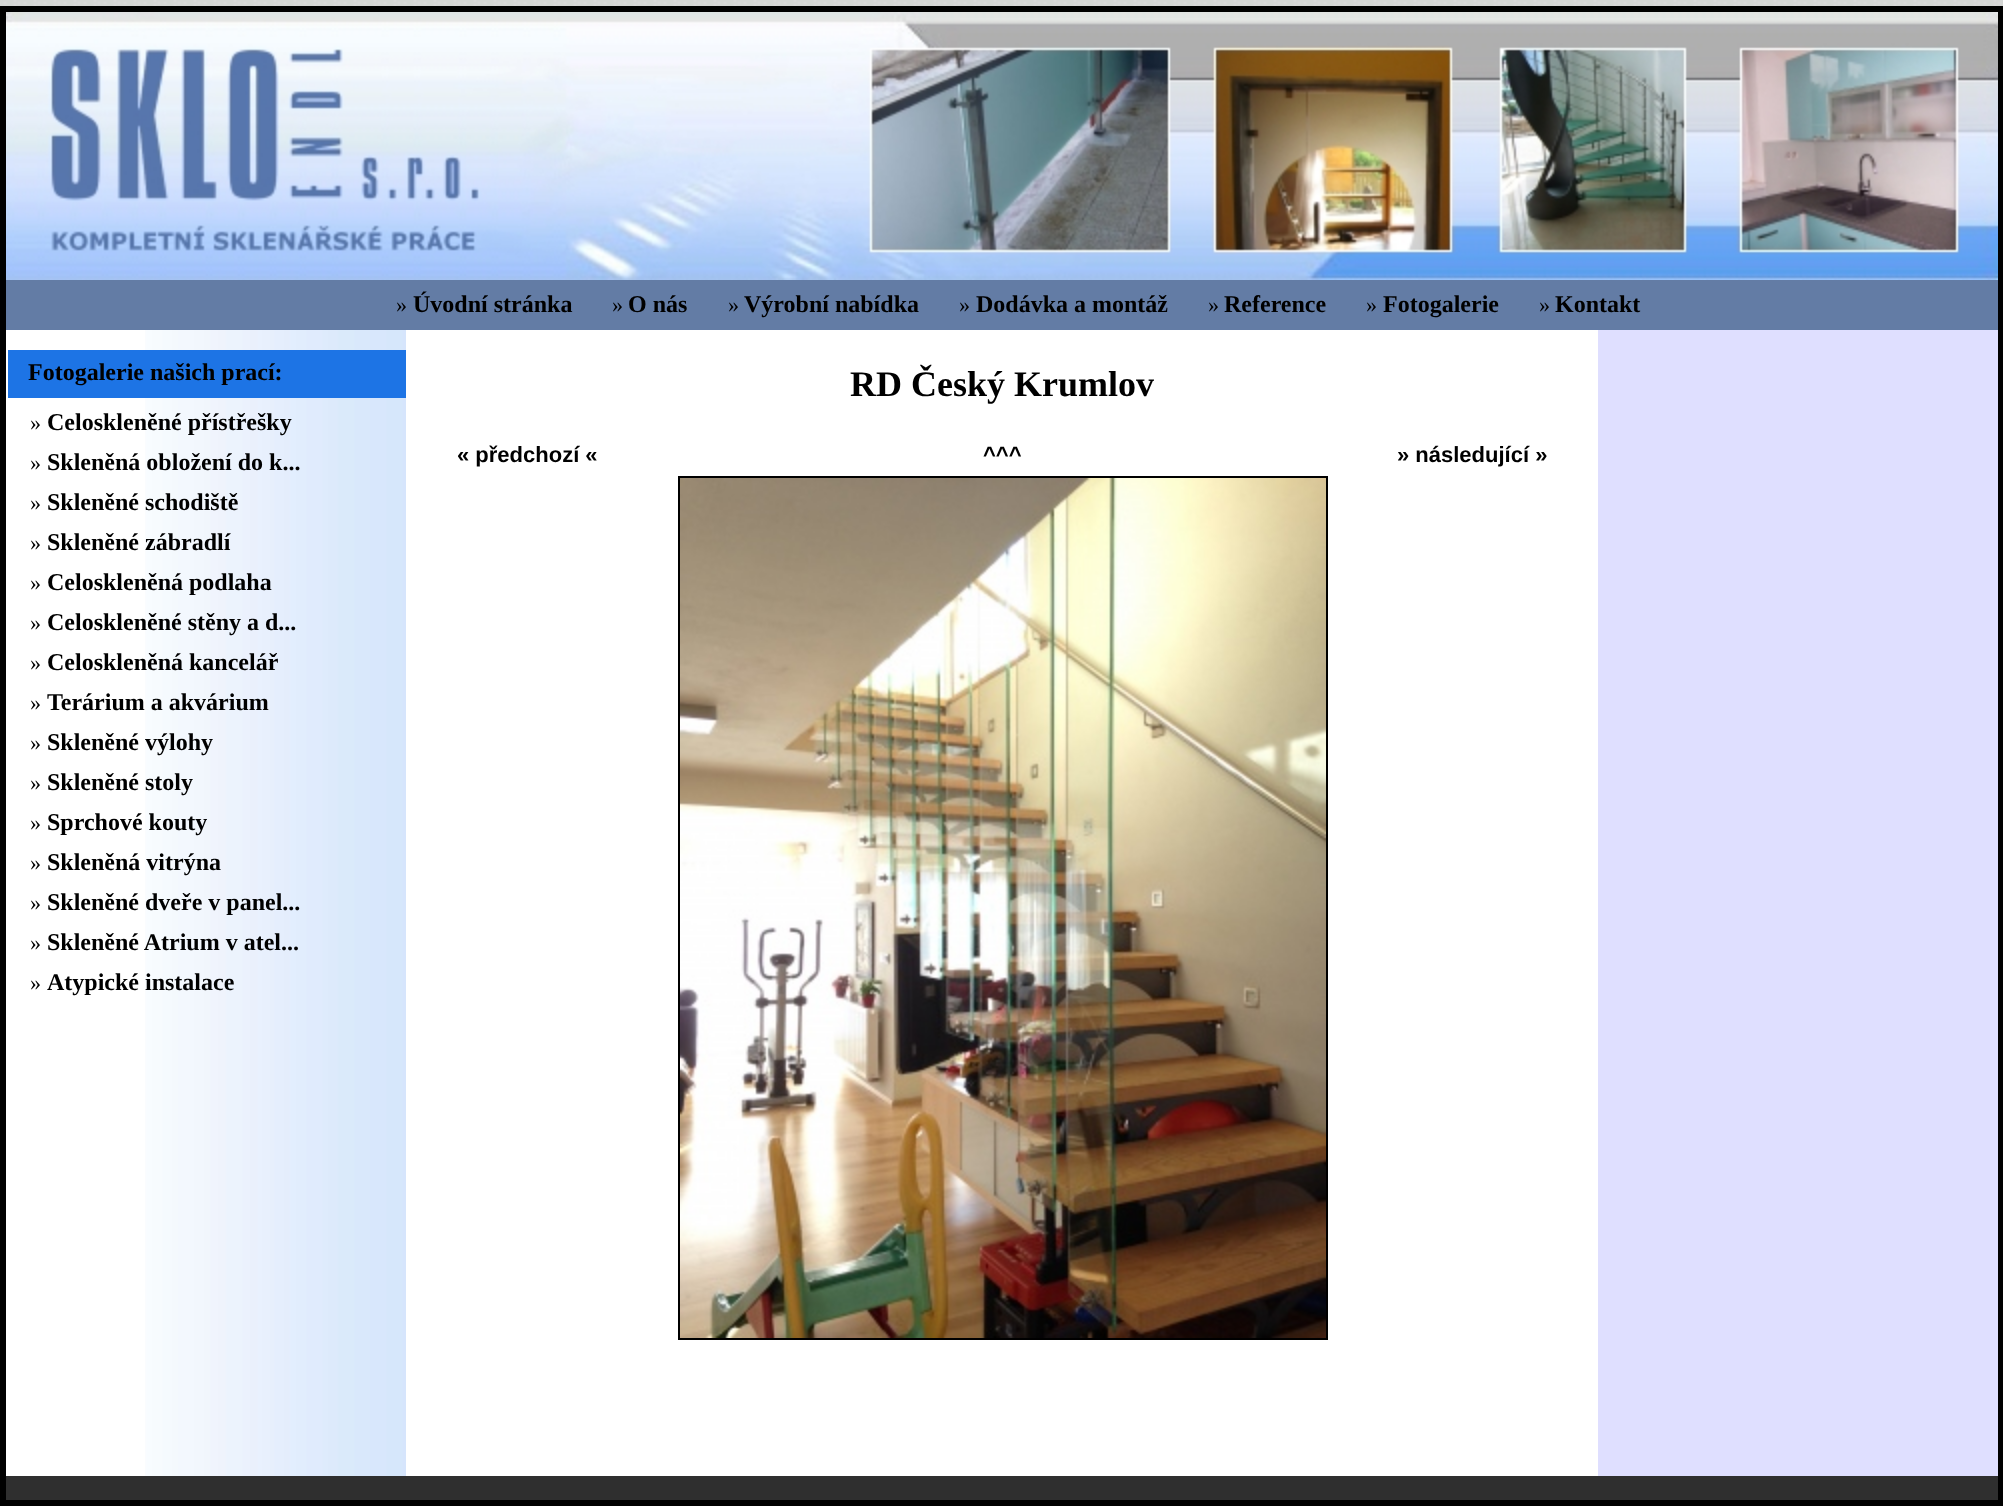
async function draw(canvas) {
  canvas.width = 2003
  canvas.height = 1512
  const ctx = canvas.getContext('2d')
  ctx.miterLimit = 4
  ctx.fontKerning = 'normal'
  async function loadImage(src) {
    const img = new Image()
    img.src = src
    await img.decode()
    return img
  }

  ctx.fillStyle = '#fff'
  ctx.fillRect(0, 0, 2003, 1512)
  ctx.drawImage(await loadImage('image0.png'), 0, 0, 2003, 6)
  ctx.strokeStyle = '#000'
  ctx.lineWidth = 6
  ctx.strokeRect(3, 9, 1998, 1494)
  ctx.drawImage(await loadImage('image1.png'), 6, 12, 1992, 268)
  ctx.fillStyle = '#637ca5'
  ctx.fillRect(6, 280, 1992, 50)
  ctx.font = '22px Liberation Serif'
  ctx.fillStyle = '#000'
  ctx.fillText('»', 396, 312)
  ctx.font = 'bold 24px Liberation Serif'
  ctx.fillText('Úvodní stránka', 413, 312)
  ctx.font = '22px Liberation Serif'
  ctx.fillText('»', 612, 312)
  ctx.font = 'bold 24px Liberation Serif'
  ctx.fillText('O nás', 628, 312)
  ctx.font = '22px Liberation Serif'
  ctx.fillText('»', 728, 312)
  ctx.font = 'bold 24px Liberation Serif'
  ctx.fillText('Výrobní nabídka', 744, 312)
  ctx.font = '22px Liberation Serif'
  ctx.fillText('»', 959, 312)
  ctx.font = 'bold 24px Liberation Serif'
  ctx.fillText('Dodávka a montáž', 976, 312)
  ctx.font = '22px Liberation Serif'
  ctx.fillText('»', 1208, 312)
  ctx.font = 'bold 24px Liberation Serif'
  ctx.fillText('Reference', 1224, 312)
  ctx.font = '22px Liberation Serif'
  ctx.fillText('»', 1366, 312)
  ctx.font = 'bold 24px Liberation Serif'
  ctx.fillText('Fotogalerie', 1383, 312)
  ctx.font = '22px Liberation Serif'
  ctx.fillText('»', 1539, 312)
  ctx.font = 'bold 24px Liberation Serif'
  ctx.fillText('Kontakt', 1555, 312)
  ctx.drawImage(await loadImage('image2.png'), 145, 330, 261, 1146)
  ctx.fillStyle = '#1d74e5'
  ctx.fillRect(8, 350, 398, 48)
  ctx.fillStyle = '#000'
  ctx.fillText('Fotogalerie našich prací:', 28, 380)
  ctx.font = '22px Liberation Serif'
  ctx.fillText('»', 30, 430)
  ctx.font = 'bold 24px Liberation Serif'
  ctx.fillText('Celoskleněné přístřešky', 47, 430)
  ctx.font = '22px Liberation Serif'
  ctx.fillText('»', 30, 470)
  ctx.font = 'bold 24px Liberation Serif'
  ctx.fillText('Skleněná obložení do k...', 47, 470)
  ctx.font = '22px Liberation Serif'
  ctx.fillText('»', 30, 510)
  ctx.font = 'bold 24px Liberation Serif'
  ctx.fillText('Skleněné schodiště', 47, 510)
  ctx.font = '22px Liberation Serif'
  ctx.fillText('»', 30, 550)
  ctx.font = 'bold 24px Liberation Serif'
  ctx.fillText('Skleněné zábradlí', 47, 550)
  ctx.font = '22px Liberation Serif'
  ctx.fillText('»', 30, 590)
  ctx.font = 'bold 24px Liberation Serif'
  ctx.fillText('Celoskleněná podlaha', 47, 590)
  ctx.font = '22px Liberation Serif'
  ctx.fillText('»', 30, 630)
  ctx.font = 'bold 24px Liberation Serif'
  ctx.fillText('Celoskleněné stěny a d...', 47, 630)
  ctx.font = '22px Liberation Serif'
  ctx.fillText('»', 30, 670)
  ctx.font = 'bold 24px Liberation Serif'
  ctx.fillText('Celoskleněná kancelář', 47, 670)
  ctx.font = '22px Liberation Serif'
  ctx.fillText('»', 30, 710)
  ctx.font = 'bold 24px Liberation Serif'
  ctx.fillText('Terárium a akvárium', 47, 710)
  ctx.font = '22px Liberation Serif'
  ctx.fillText('»', 30, 750)
  ctx.font = 'bold 24px Liberation Serif'
  ctx.fillText('Skleněné výlohy', 47, 750)
  ctx.font = '22px Liberation Serif'
  ctx.fillText('»', 30, 790)
  ctx.font = 'bold 24px Liberation Serif'
  ctx.fillText('Skleněné stoly', 47, 790)
  ctx.font = '22px Liberation Serif'
  ctx.fillText('»', 30, 830)
  ctx.font = 'bold 24px Liberation Serif'
  ctx.fillText('Sprchové kouty', 47, 830)
  ctx.font = '22px Liberation Serif'
  ctx.fillText('»', 30, 870)
  ctx.font = 'bold 24px Liberation Serif'
  ctx.fillText('Skleněná vitrýna', 47, 870)
  ctx.font = '22px Liberation Serif'
  ctx.fillText('»', 30, 910)
  ctx.font = 'bold 24px Liberation Serif'
  ctx.fillText('Skleněné dveře v panel...', 47, 910)
  ctx.font = '22px Liberation Serif'
  ctx.fillText('»', 30, 950)
  ctx.font = 'bold 24px Liberation Serif'
  ctx.fillText('Skleněné Atrium v atel...', 47, 950)
  ctx.font = '22px Liberation Serif'
  ctx.fillText('»', 30, 990)
  ctx.font = 'bold 24px Liberation Serif'
  ctx.fillText('Atypické instalace', 47, 990)
  ctx.font = 'bold 36px Liberation Serif'
  ctx.fillText('RD Český Krumlov', 850, 396)
  ctx.font = 'bold 22px Liberation Sans'
  ctx.fillText('« předchozí «', 457, 462)
  ctx.fillText('^^^', 983, 462)
  ctx.fillText('» následující »', 1397, 462)
  ctx.lineWidth = 2
  ctx.strokeRect(679, 477, 648, 862)
  ctx.drawImage(await loadImage('image3.png'), 680, 478, 646, 860)
  ctx.fillStyle = '#dfdfff'
  ctx.fillRect(1598, 330, 400, 1146)
  ctx.fillStyle = '#2f2f2f'
  ctx.fillRect(6, 1476, 1992, 24)
}

draw(document.querySelector('canvas'))
